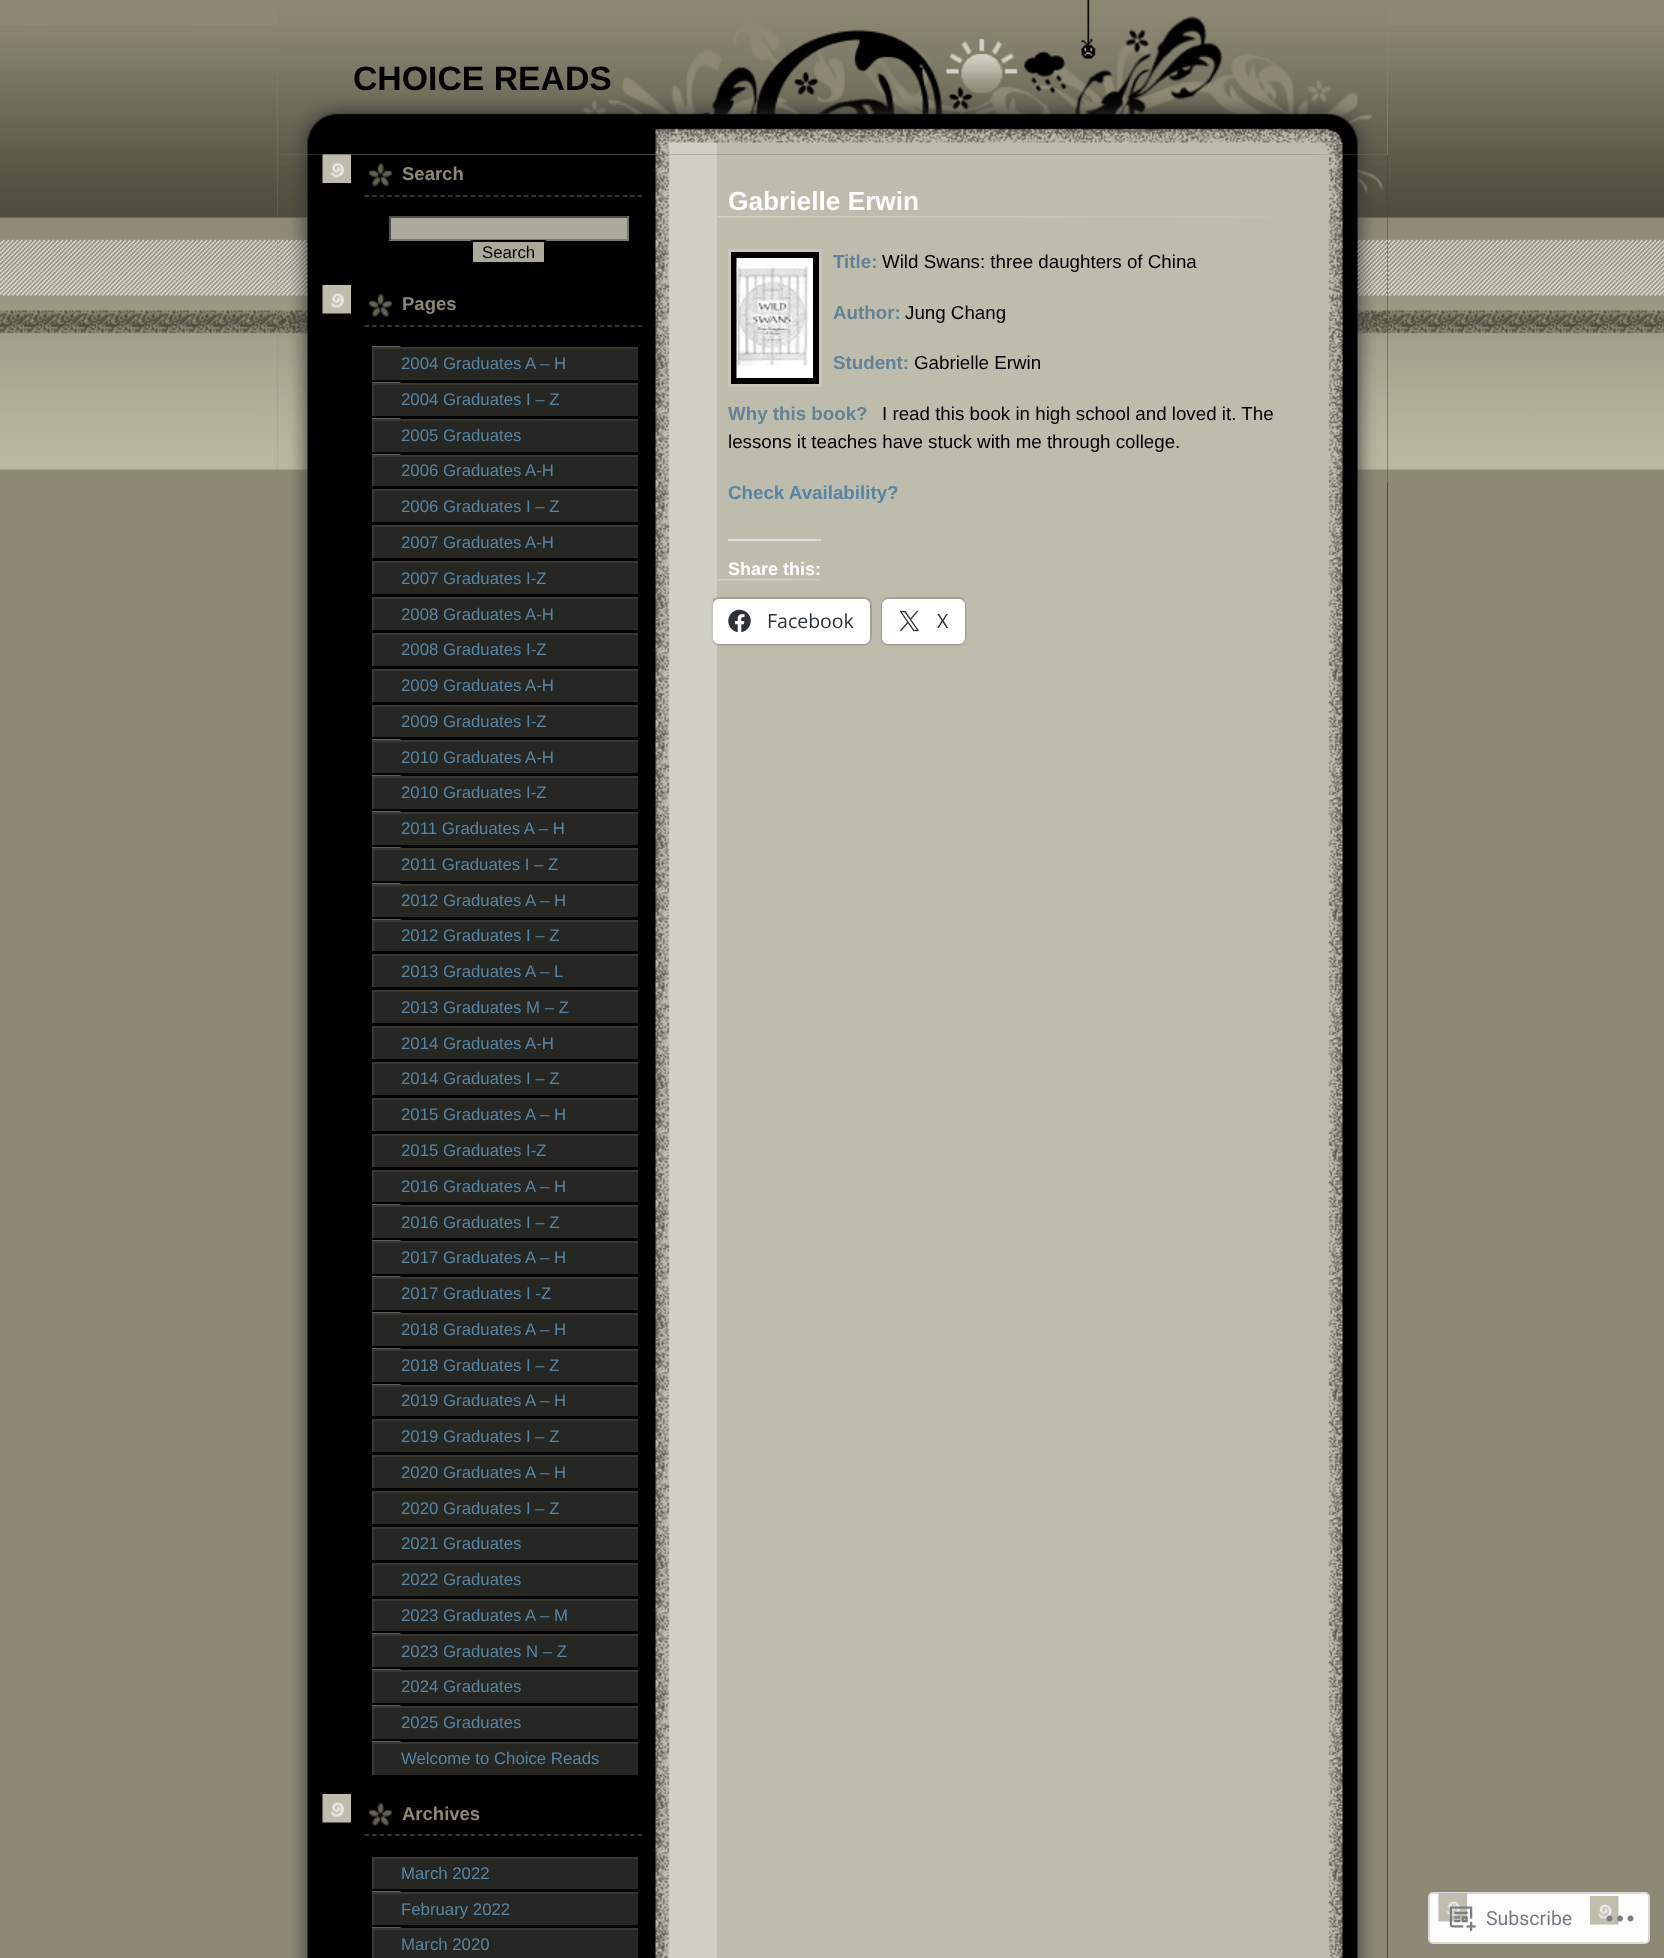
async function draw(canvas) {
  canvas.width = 1664
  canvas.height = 1958
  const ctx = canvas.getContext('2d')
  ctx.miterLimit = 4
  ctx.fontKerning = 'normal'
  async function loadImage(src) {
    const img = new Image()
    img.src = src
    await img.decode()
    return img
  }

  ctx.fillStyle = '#8d8975'
  ctx.fillRect(0, 0, 1664, 1958)
  ctx.drawImage(await loadImage('image0.png'), 0, 25, 1664, 445)
  ctx.fillStyle = '#000'
  ctx.fillRect(1387, 155, 1, 1803)
  ctx.drawImage(await loadImage('image1.png'), 277, 0, 1111, 1958)
  ctx.fillStyle = '#8d8975'
  ctx.fillRect(291, 0, 1097, 155)
  ctx.drawImage(await loadImage('image2.png'), 277, 0, 1111, 155)
  ctx.font = 'bold 33.75px Liberation Sans'
  ctx.fillStyle = '#000'
  ctx.fillText('CHOICE READS', 353, 90)
  ctx.drawImage(await loadImage('image3.png'), 277, 154, 47, 316)
  ctx.drawImage(await loadImage('image4.png'), 1318, 154, 70, 329)
  ctx.drawImage(await loadImage('image5.png'), 322, 154, 29, 29)
  ctx.drawImage(await loadImage('image6.png'), 368, 163, 25, 24)
  ctx.beginPath()
  ctx.moveTo(364.5, 196)
  ctx.lineTo(642, 196)
  ctx.strokeStyle = '#4a483d'
  ctx.lineWidth = 1.5
  ctx.setLineDash([4.5, 3.09])
  ctx.stroke()
  ctx.font = 'bold 18.5px Liberation Sans'
  ctx.fillStyle = '#8d8975'
  ctx.fillText('Search', 402, 180)
  ctx.fillStyle = '#aba99b'
  ctx.fillRect(391, 218, 236, 21)
  ctx.fillStyle = '#4f4f4f'
  ctx.fillRect(389, 216, 240, 2)
  ctx.fillStyle = '#767676'
  ctx.fillRect(627, 216, 2, 24)
  ctx.fillRect(389, 239, 240, 2)
  ctx.fillStyle = '#4f4f4f'
  ctx.fillRect(389, 216, 2, 24)
  ctx.fillStyle = '#aba99b'
  ctx.beginPath()
  ctx.rect(472, 241, 73, 22)
  ctx.fill()
  ctx.strokeStyle = '#000'
  ctx.lineWidth = 2
  ctx.setLineDash([])
  ctx.stroke()
  ctx.font = '16.8px Liberation Sans'
  ctx.fillStyle = '#000'
  ctx.fillText('Search', 482, 258)
  ctx.drawImage(await loadImage('image7.png'), 322, 285, 29, 29)
  ctx.drawImage(await loadImage('image8.png'), 368, 293, 25, 24)
  ctx.beginPath()
  ctx.moveTo(364.5, 326)
  ctx.lineTo(642, 326)
  ctx.strokeStyle = '#4a483d'
  ctx.lineWidth = 1.5
  ctx.setLineDash([4.5, 3.09])
  ctx.stroke()
  ctx.font = 'bold 18.5px Liberation Sans'
  ctx.fillStyle = '#8d8975'
  ctx.fillText('Pages', 402, 310)
  ctx.drawImage(await loadImage('image9.png'), 372, 346, 29, 1)
  ctx.fillStyle = '#262623'
  ctx.fillRect(374, 349, 264, 31)
  ctx.fillStyle = '#393934'
  ctx.fillRect(372, 347, 266, 2)
  ctx.fillRect(372, 347, 2, 33)
  ctx.font = '16.8px Liberation Sans'
  ctx.fillStyle = '#5785a4'
  ctx.fillText('2004 Graduates A – H', 401, 369)
  ctx.drawImage(await loadImage('image9.png'), 372, 382, 29, 1)
  ctx.fillStyle = '#262623'
  ctx.fillRect(374, 385, 264, 31)
  ctx.fillStyle = '#393934'
  ctx.fillRect(372, 383, 266, 2)
  ctx.fillRect(372, 383, 2, 33)
  ctx.fillStyle = '#5785a4'
  ctx.fillText('2004 Graduates I – Z', 401, 405)
  ctx.drawImage(await loadImage('image9.png'), 372, 418, 29, 1)
  ctx.fillStyle = '#262623'
  ctx.fillRect(374, 421, 264, 31)
  ctx.fillStyle = '#393934'
  ctx.fillRect(372, 419, 266, 2)
  ctx.fillRect(372, 419, 2, 33)
  ctx.fillStyle = '#5785a4'
  ctx.fillText('2005 Graduates', 401, 441)
  ctx.drawImage(await loadImage('image9.png'), 372, 454, 29, 1)
  ctx.fillStyle = '#262623'
  ctx.fillRect(374, 457, 264, 29)
  ctx.fillStyle = '#393934'
  ctx.fillRect(372, 455, 266, 2)
  ctx.fillRect(372, 455, 2, 31)
  ctx.fillStyle = '#5785a4'
  ctx.fillText('2006 Graduates A-H', 401, 476)
  ctx.fillStyle = '#262623'
  ctx.fillRect(374, 491, 264, 31)
  ctx.fillStyle = '#393934'
  ctx.fillRect(372, 489, 266, 2)
  ctx.fillRect(372, 489, 2, 33)
  ctx.fillStyle = '#5785a4'
  ctx.fillText('2006 Graduates I – Z', 401, 512)
  ctx.fillStyle = '#262623'
  ctx.fillRect(374, 527, 264, 31)
  ctx.fillStyle = '#393934'
  ctx.fillRect(372, 525, 266, 2)
  ctx.fillRect(372, 525, 2, 33)
  ctx.fillStyle = '#5785a4'
  ctx.fillText('2007 Graduates A-H', 401, 548)
  ctx.fillStyle = '#262623'
  ctx.fillRect(374, 563, 264, 31)
  ctx.fillStyle = '#393934'
  ctx.fillRect(372, 561, 266, 2)
  ctx.fillRect(372, 561, 2, 33)
  ctx.fillStyle = '#5785a4'
  ctx.fillText('2007 Graduates I-Z', 401, 584)
  ctx.fillStyle = '#262623'
  ctx.fillRect(374, 599, 264, 31)
  ctx.fillStyle = '#393934'
  ctx.fillRect(372, 597, 266, 2)
  ctx.fillRect(372, 597, 2, 33)
  ctx.fillStyle = '#5785a4'
  ctx.fillText('2008 Graduates A-H', 401, 620)
  ctx.fillStyle = '#262623'
  ctx.fillRect(374, 635, 264, 31)
  ctx.fillStyle = '#393934'
  ctx.fillRect(372, 633, 266, 2)
  ctx.fillRect(372, 633, 2, 33)
  ctx.fillStyle = '#5785a4'
  ctx.fillText('2008 Graduates I-Z', 401, 655)
  ctx.fillStyle = '#262623'
  ctx.fillRect(374, 671, 264, 31)
  ctx.fillStyle = '#393934'
  ctx.fillRect(372, 669, 266, 2)
  ctx.fillRect(372, 669, 2, 33)
  ctx.fillStyle = '#5785a4'
  ctx.fillText('2009 Graduates A-H', 401, 691)
  ctx.fillStyle = '#262623'
  ctx.fillRect(374, 707, 264, 30)
  ctx.fillStyle = '#393934'
  ctx.fillRect(372, 705, 266, 2)
  ctx.fillRect(372, 705, 2, 32)
  ctx.fillStyle = '#5785a4'
  ctx.fillText('2009 Graduates I-Z', 401, 727)
  ctx.drawImage(await loadImage('image9.png'), 372, 739, 29, 1)
  ctx.fillStyle = '#262623'
  ctx.fillRect(374, 742, 264, 31)
  ctx.fillStyle = '#393934'
  ctx.fillRect(372, 740, 266, 2)
  ctx.fillRect(372, 740, 2, 33)
  ctx.fillStyle = '#5785a4'
  ctx.fillText('2010 Graduates A-H', 401, 763)
  ctx.drawImage(await loadImage('image9.png'), 372, 775, 29, 1)
  ctx.fillStyle = '#262623'
  ctx.fillRect(374, 778, 264, 31)
  ctx.fillStyle = '#393934'
  ctx.fillRect(372, 776, 266, 2)
  ctx.fillRect(372, 776, 2, 33)
  ctx.fillStyle = '#5785a4'
  ctx.fillText('2010 Graduates I-Z', 401, 798)
  ctx.drawImage(await loadImage('image9.png'), 372, 811, 29, 1)
  ctx.fillStyle = '#262623'
  ctx.fillRect(374, 814, 264, 31)
  ctx.fillStyle = '#393934'
  ctx.fillRect(372, 812, 266, 2)
  ctx.fillRect(372, 812, 2, 33)
  ctx.fillStyle = '#5785a4'
  ctx.fillText('2011 Graduates A – H', 401, 834)
  ctx.drawImage(await loadImage('image9.png'), 372, 847, 29, 1)
  ctx.fillStyle = '#262623'
  ctx.fillRect(374, 850, 264, 31)
  ctx.fillStyle = '#393934'
  ctx.fillRect(372, 848, 266, 2)
  ctx.fillRect(372, 848, 2, 33)
  ctx.fillStyle = '#5785a4'
  ctx.fillText('2011 Graduates I – Z', 401, 870)
  ctx.drawImage(await loadImage('image9.png'), 372, 883, 29, 1)
  ctx.fillStyle = '#262623'
  ctx.fillRect(374, 886, 264, 31)
  ctx.fillStyle = '#393934'
  ctx.fillRect(372, 884, 266, 2)
  ctx.fillRect(372, 884, 2, 33)
  ctx.fillStyle = '#5785a4'
  ctx.fillText('2012 Graduates A – H', 401, 906)
  ctx.drawImage(await loadImage('image9.png'), 372, 919, 29, 1)
  ctx.fillStyle = '#262623'
  ctx.fillRect(374, 922, 264, 29)
  ctx.fillStyle = '#393934'
  ctx.fillRect(372, 920, 266, 2)
  ctx.fillRect(372, 920, 2, 31)
  ctx.fillStyle = '#5785a4'
  ctx.fillText('2012 Graduates I – Z', 401, 941)
  ctx.fillStyle = '#262623'
  ctx.fillRect(374, 956, 264, 31)
  ctx.fillStyle = '#393934'
  ctx.fillRect(372, 954, 266, 2)
  ctx.fillRect(372, 954, 2, 33)
  ctx.fillStyle = '#5785a4'
  ctx.fillText('2013 Graduates A – L', 401, 977)
  ctx.fillStyle = '#262623'
  ctx.fillRect(374, 992, 264, 31)
  ctx.fillStyle = '#393934'
  ctx.fillRect(372, 990, 266, 2)
  ctx.fillRect(372, 990, 2, 33)
  ctx.fillStyle = '#5785a4'
  ctx.fillText('2013 Graduates M – Z', 401, 1013)
  ctx.fillStyle = '#262623'
  ctx.fillRect(374, 1028, 264, 31)
  ctx.fillStyle = '#393934'
  ctx.fillRect(372, 1026, 266, 2)
  ctx.fillRect(372, 1026, 2, 33)
  ctx.fillStyle = '#5785a4'
  ctx.fillText('2014 Graduates A-H', 401, 1049)
  ctx.fillStyle = '#262623'
  ctx.fillRect(374, 1064, 264, 31)
  ctx.fillStyle = '#393934'
  ctx.fillRect(372, 1062, 266, 2)
  ctx.fillRect(372, 1062, 2, 33)
  ctx.fillStyle = '#5785a4'
  ctx.fillText('2014 Graduates I – Z', 401, 1084)
  ctx.fillStyle = '#262623'
  ctx.fillRect(374, 1100, 264, 31)
  ctx.fillStyle = '#393934'
  ctx.fillRect(372, 1098, 266, 2)
  ctx.fillRect(372, 1098, 2, 33)
  ctx.fillStyle = '#5785a4'
  ctx.fillText('2015 Graduates A – H', 401, 1120)
  ctx.fillStyle = '#262623'
  ctx.fillRect(374, 1136, 264, 31)
  ctx.fillStyle = '#393934'
  ctx.fillRect(372, 1134, 266, 2)
  ctx.fillRect(372, 1134, 2, 33)
  ctx.fillStyle = '#5785a4'
  ctx.fillText('2015 Graduates I-Z', 401, 1156)
  ctx.fillStyle = '#262623'
  ctx.fillRect(374, 1172, 264, 30)
  ctx.fillStyle = '#393934'
  ctx.fillRect(372, 1170, 266, 2)
  ctx.fillRect(372, 1170, 2, 32)
  ctx.fillStyle = '#5785a4'
  ctx.fillText('2016 Graduates A – H', 401, 1192)
  ctx.drawImage(await loadImage('image9.png'), 372, 1204, 29, 1)
  ctx.fillStyle = '#262623'
  ctx.fillRect(374, 1207, 264, 31)
  ctx.fillStyle = '#393934'
  ctx.fillRect(372, 1205, 266, 2)
  ctx.fillRect(372, 1205, 2, 33)
  ctx.fillStyle = '#5785a4'
  ctx.fillText('2016 Graduates I – Z', 401, 1228)
  ctx.drawImage(await loadImage('image9.png'), 372, 1240, 29, 1)
  ctx.fillStyle = '#262623'
  ctx.fillRect(374, 1243, 264, 31)
  ctx.fillStyle = '#393934'
  ctx.fillRect(372, 1241, 266, 2)
  ctx.fillRect(372, 1241, 2, 33)
  ctx.fillStyle = '#5785a4'
  ctx.fillText('2017 Graduates A – H', 401, 1263)
  ctx.drawImage(await loadImage('image9.png'), 372, 1276, 29, 1)
  ctx.fillStyle = '#262623'
  ctx.fillRect(374, 1279, 264, 31)
  ctx.fillStyle = '#393934'
  ctx.fillRect(372, 1277, 266, 2)
  ctx.fillRect(372, 1277, 2, 33)
  ctx.fillStyle = '#5785a4'
  ctx.fillText('2017 Graduates I -Z', 401, 1299)
  ctx.drawImage(await loadImage('image9.png'), 372, 1312, 29, 1)
  ctx.fillStyle = '#262623'
  ctx.fillRect(374, 1315, 264, 31)
  ctx.fillStyle = '#393934'
  ctx.fillRect(372, 1313, 266, 2)
  ctx.fillRect(372, 1313, 2, 33)
  ctx.fillStyle = '#5785a4'
  ctx.fillText('2018 Graduates A – H', 401, 1335)
  ctx.drawImage(await loadImage('image9.png'), 372, 1348, 29, 1)
  ctx.fillStyle = '#262623'
  ctx.fillRect(374, 1351, 264, 31)
  ctx.fillStyle = '#393934'
  ctx.fillRect(372, 1349, 266, 2)
  ctx.fillRect(372, 1349, 2, 33)
  ctx.fillStyle = '#5785a4'
  ctx.fillText('2018 Graduates I – Z', 401, 1371)
  ctx.drawImage(await loadImage('image9.png'), 372, 1384, 29, 1)
  ctx.fillStyle = '#262623'
  ctx.fillRect(374, 1387, 264, 29)
  ctx.fillStyle = '#393934'
  ctx.fillRect(372, 1385, 266, 2)
  ctx.fillRect(372, 1385, 2, 31)
  ctx.fillStyle = '#5785a4'
  ctx.fillText('2019 Graduates A – H', 401, 1406)
  ctx.fillStyle = '#262623'
  ctx.fillRect(374, 1421, 264, 31)
  ctx.fillStyle = '#393934'
  ctx.fillRect(372, 1419, 266, 2)
  ctx.fillRect(372, 1419, 2, 33)
  ctx.fillStyle = '#5785a4'
  ctx.fillText('2019 Graduates I – Z', 401, 1442)
  ctx.fillStyle = '#262623'
  ctx.fillRect(374, 1457, 264, 31)
  ctx.fillStyle = '#393934'
  ctx.fillRect(372, 1455, 266, 2)
  ctx.fillRect(372, 1455, 2, 33)
  ctx.fillStyle = '#5785a4'
  ctx.fillText('2020 Graduates A – H', 401, 1478)
  ctx.fillStyle = '#262623'
  ctx.fillRect(374, 1493, 264, 31)
  ctx.fillStyle = '#393934'
  ctx.fillRect(372, 1491, 266, 2)
  ctx.fillRect(372, 1491, 2, 33)
  ctx.fillStyle = '#5785a4'
  ctx.fillText('2020 Graduates I – Z', 401, 1514)
  ctx.fillStyle = '#262623'
  ctx.fillRect(374, 1529, 264, 31)
  ctx.fillStyle = '#393934'
  ctx.fillRect(372, 1527, 266, 2)
  ctx.fillRect(372, 1527, 2, 33)
  ctx.fillStyle = '#5785a4'
  ctx.fillText('2021 Graduates', 401, 1549)
  ctx.fillStyle = '#262623'
  ctx.fillRect(374, 1565, 264, 31)
  ctx.fillStyle = '#393934'
  ctx.fillRect(372, 1563, 266, 2)
  ctx.fillRect(372, 1563, 2, 33)
  ctx.fillStyle = '#5785a4'
  ctx.fillText('2022 Graduates', 401, 1585)
  ctx.fillStyle = '#262623'
  ctx.fillRect(374, 1601, 264, 30)
  ctx.fillStyle = '#393934'
  ctx.fillRect(372, 1599, 266, 2)
  ctx.fillRect(372, 1599, 2, 32)
  ctx.fillStyle = '#5785a4'
  ctx.fillText('2023 Graduates A – M', 401, 1621)
  ctx.drawImage(await loadImage('image9.png'), 372, 1633, 29, 1)
  ctx.fillStyle = '#262623'
  ctx.fillRect(374, 1636, 264, 31)
  ctx.fillStyle = '#393934'
  ctx.fillRect(372, 1634, 266, 2)
  ctx.fillRect(372, 1634, 2, 33)
  ctx.fillStyle = '#5785a4'
  ctx.fillText('2023 Graduates N – Z', 401, 1657)
  ctx.drawImage(await loadImage('image9.png'), 372, 1669, 29, 1)
  ctx.fillStyle = '#262623'
  ctx.fillRect(374, 1672, 264, 31)
  ctx.fillStyle = '#393934'
  ctx.fillRect(372, 1670, 266, 2)
  ctx.fillRect(372, 1670, 2, 33)
  ctx.fillStyle = '#5785a4'
  ctx.fillText('2024 Graduates', 401, 1692)
  ctx.drawImage(await loadImage('image9.png'), 372, 1705, 29, 1)
  ctx.fillStyle = '#262623'
  ctx.fillRect(374, 1708, 264, 31)
  ctx.fillStyle = '#393934'
  ctx.fillRect(372, 1706, 266, 2)
  ctx.fillRect(372, 1706, 2, 33)
  ctx.fillStyle = '#5785a4'
  ctx.fillText('2025 Graduates', 401, 1728)
  ctx.drawImage(await loadImage('image9.png'), 372, 1741, 29, 1)
  ctx.fillStyle = '#262623'
  ctx.fillRect(374, 1744, 264, 31)
  ctx.fillStyle = '#393934'
  ctx.fillRect(372, 1742, 266, 2)
  ctx.fillRect(372, 1742, 2, 33)
  ctx.fillStyle = '#5785a4'
  ctx.fillText('Welcome to Choice Reads', 401, 1764)
  ctx.drawImage(await loadImage('image7.png'), 322, 1794, 29, 29)
  ctx.drawImage(await loadImage('image8.png'), 368, 1802, 25, 24)
  ctx.beginPath()
  ctx.moveTo(364.5, 1835)
  ctx.lineTo(642, 1835)
  ctx.stroke()
  ctx.font = 'bold 18.5px Liberation Sans'
  ctx.fillStyle = '#8d8975'
  ctx.fillText('Archives', 402, 1820)
  ctx.fillStyle = '#262623'
  ctx.fillRect(374, 1859, 264, 30)
  ctx.fillStyle = '#393934'
  ctx.fillRect(372, 1857, 266, 2)
  ctx.fillRect(372, 1857, 2, 32)
  ctx.font = '16.8px Liberation Sans'
  ctx.fillStyle = '#5785a4'
  ctx.fillText('March 2022', 401, 1879)
  ctx.drawImage(await loadImage('image9.png'), 372, 1891, 29, 1)
  ctx.fillStyle = '#262623'
  ctx.fillRect(374, 1894, 264, 31)
  ctx.fillStyle = '#393934'
  ctx.fillRect(372, 1892, 266, 2)
  ctx.fillRect(372, 1892, 2, 33)
  ctx.fillStyle = '#5785a4'
  ctx.fillText('February 2022', 401, 1915)
  ctx.drawImage(await loadImage('image9.png'), 372, 1927, 29, 1)
  ctx.fillStyle = '#262623'
  ctx.fillRect(374, 1930, 264, 28)
  ctx.fillStyle = '#393934'
  ctx.fillRect(372, 1928, 266, 2)
  ctx.fillRect(372, 1928, 2, 30)
  ctx.fillStyle = '#5785a4'
  ctx.fillText('March 2020', 401, 1950)
  ctx.drawImage(await loadImage('image10.png'), 717, 216, 551, 2)
  ctx.font = 'bold 26.25px Liberation Sans'
  ctx.fillStyle = '#fff'
  ctx.fillText('Gabrielle Erwin', 728, 210)
  ctx.fillStyle = '#000'
  ctx.beginPath()
  ctx.rect(729.5, 250.5, 91, 135)
  ctx.fill()
  ctx.strokeStyle = '#c8c6ba'
  ctx.lineWidth = 3
  ctx.setLineDash([])
  ctx.stroke()
  ctx.drawImage(await loadImage('image11.png'), 736, 258, 77, 120)
  ctx.font = 'bold 18.75px Liberation Sans'
  ctx.fillStyle = '#638296'
  ctx.fillText('Title:', 833, 268)
  ctx.font = '18.75px Liberation Sans'
  ctx.fillStyle = '#000'
  ctx.fillText('Wild Swans: three daughters of China', 882, 268)
  ctx.font = 'bold 18.75px Liberation Sans'
  ctx.fillStyle = '#638296'
  ctx.fillText('Author:', 833, 319)
  ctx.font = '18.75px Liberation Sans'
  ctx.fillStyle = '#000'
  ctx.fillText('Jung Chang', 905, 319)
  ctx.font = 'bold 18.75px Liberation Sans'
  ctx.fillStyle = '#638296'
  ctx.fillText('Student:', 833, 369)
  ctx.font = '18.75px Liberation Sans'
  ctx.fillStyle = '#000'
  ctx.fillText('Gabrielle Erwin', 914, 369)
  ctx.font = 'bold 18.75px Liberation Sans'
  ctx.fillStyle = '#638296'
  ctx.fillText('Why this book?', 728, 420)
  ctx.font = '18.75px Liberation Sans'
  ctx.fillStyle = '#000'
  ctx.fillText('I read this book in high school and loved it. The', 882, 420)
  ctx.fillText('lessons it teaches have stuck with me through college.', 728, 448)
  ctx.font = 'bold 18.75px Liberation Sans'
  ctx.fillStyle = '#5785a4'
  ctx.fillText('Check Availability?', 728, 499)
  ctx.drawImage(await loadImage('image12.png'), 717, 579, 104, 2)
  ctx.fillStyle = '#dcdcde'
  ctx.fillRect(728, 539, 93, 2)
  ctx.font = 'bold 18px Liberation Sans'
  ctx.fillStyle = '#fff'
  ctx.fillText('Share this:', 728, 575)
  ctx.drawImage(await loadImage('image13.png'), 712, 598, 22, 29)
  ctx.save()
  ctx.beginPath()
  ctx.rect(713, 155, 675, 600)
  ctx.clip()
  ctx.beginPath()
  ctx.roundRect(712, 598, 159, 46, 7)
  ctx.strokeStyle = '#0000001f'
  ctx.lineWidth = 2
  ctx.stroke()
  ctx.restore()
  ctx.save()
  ctx.beginPath()
  ctx.moveTo(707, 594)
  ctx.lineTo(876, 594)
  ctx.lineTo(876, 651)
  ctx.lineTo(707, 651)
  ctx.closePath()
  ctx.moveTo(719, 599)
  ctx.lineTo(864, 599)
  ctx.bezierCurveTo(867.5, 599, 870, 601.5, 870, 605)
  ctx.lineTo(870, 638)
  ctx.bezierCurveTo(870, 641.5, 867.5, 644, 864, 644)
  ctx.lineTo(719, 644)
  ctx.bezierCurveTo(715.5, 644, 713, 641.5, 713, 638)
  ctx.lineTo(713, 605)
  ctx.bezierCurveTo(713, 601.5, 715.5, 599, 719, 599)
  ctx.closePath()
  ctx.clip('evenodd')
  ctx.fillStyle = '#0000001f'
  ctx.filter = 'blur(1.5px)'
  ctx.beginPath()
  ctx.roundRect(713, 600, 157, 45, 6)
  ctx.fill()
  ctx.filter = 'none'
  ctx.restore()
  ctx.beginPath()
  ctx.roundRect(713, 599, 157, 45, 6)
  ctx.fill()
  ctx.drawImage(await loadImage('image14.png'), 728, 609, 23, 24)
  ctx.font = '19.5px Open Sans'
  ctx.fillStyle = '#2c3338'
  ctx.fillText('Facebook', 767, 628)
  ctx.beginPath()
  ctx.roundRect(882, 598, 83, 46, 7)
  ctx.strokeStyle = '#a7a598'
  ctx.lineWidth = 2
  ctx.stroke()
  ctx.fillStyle = '#0000001f'
  ctx.filter = 'blur(1.5px)'
  ctx.beginPath()
  ctx.roundRect(882, 600, 83, 45, 6)
  ctx.fill()
  ctx.filter = 'none'
  ctx.fillStyle = '#fff'
  ctx.beginPath()
  ctx.roundRect(882, 599, 83, 45, 6)
  ctx.fill()
  ctx.drawImage(await loadImage('image15.png'), 899, 610, 21, 22)
  ctx.fillStyle = '#2c3338'
  ctx.fillText('X', 937, 628)
  ctx.fillStyle = '#fdfdfc'
  ctx.beginPath()
  ctx.roundRect(1429, 1893, 220, 50, 4)
  ctx.fill()
  ctx.strokeStyle = '#dadadc'
  ctx.stroke()
  ctx.drawImage(await loadImage('image16.png'), 1438, 1893, 29, 29)
  ctx.drawImage(await loadImage('image17.png'), 1449, 1906, 27, 25)
  ctx.font = '19.5px Roboto'
  ctx.fillStyle = '#787c82'
  ctx.fillText('Subscribe', 1486, 1925)
  ctx.drawImage(await loadImage('image18.png'), 1590, 1896, 29, 29)
  ctx.drawImage(await loadImage('image19.png'), 1606, 1915, 28, 7)
}

draw(document.querySelector('canvas'))
